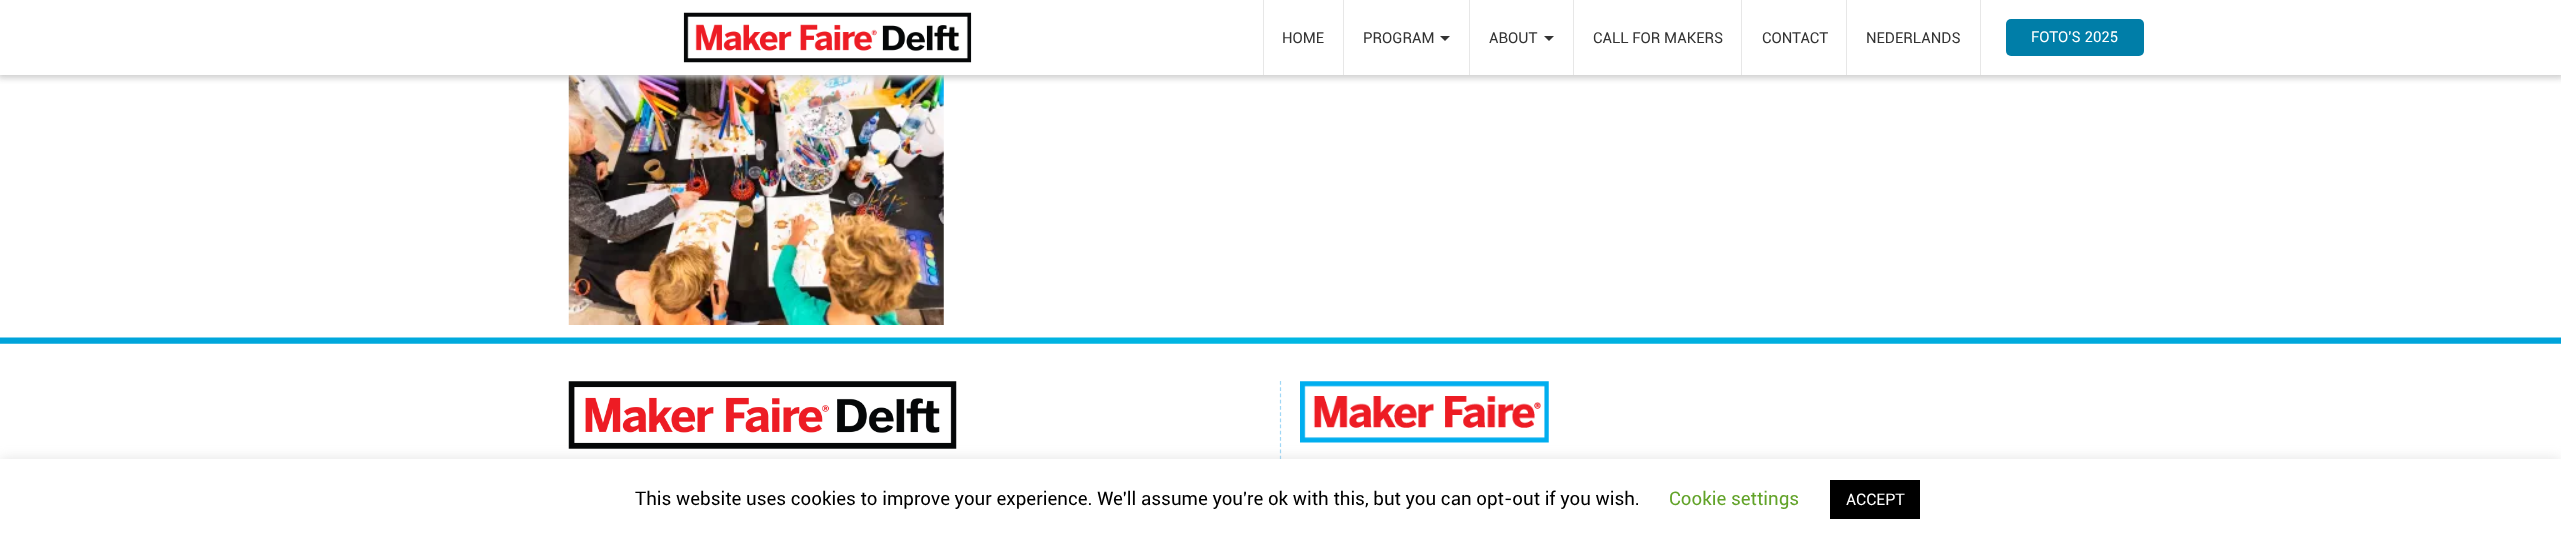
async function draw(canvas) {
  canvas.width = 2561
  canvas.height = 540
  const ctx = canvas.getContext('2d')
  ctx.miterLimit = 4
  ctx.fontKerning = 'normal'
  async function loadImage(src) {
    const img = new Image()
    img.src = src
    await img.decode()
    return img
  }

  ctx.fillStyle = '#fff'
  ctx.fillRect(0, 0, 2561, 540)
  ctx.drawImage(await loadImage('image1.png'), 568, 75, 376, 250)
  ctx.save()
  ctx.beginPath()
  ctx.rect(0, 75, 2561, 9)
  ctx.clip()
  ctx.fillStyle = '#ccc'
  ctx.filter = 'blur(3px)'
  ctx.beginPath()
  ctx.rect(-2, -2, 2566, 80)
  ctx.fill()
  ctx.filter = 'none'
  ctx.restore()
  ctx.drawImage(await loadImage('image0.png'), 683, 12, 289, 51)
  ctx.fillStyle = '#e7e7e7'
  ctx.fillRect(1343, 0, 1, 75)
  ctx.fillRect(1263, 0, 1, 75)
  ctx.font = '15px Roboto'
  ctx.fillStyle = '#333'
  ctx.fillText('HOME', 1282, 43)
  ctx.fillStyle = '#e7e7e7'
  ctx.fillRect(1469, 0, 1, 75)
  ctx.fillStyle = '#333'
  ctx.fillText('PROGRAM', 1363, 43)
  ctx.beginPath()
  ctx.moveTo(1440, 36)
  ctx.lineTo(1450, 36)
  ctx.lineTo(1445, 41)
  ctx.closePath()
  ctx.fill()
  ctx.fillStyle = '#e7e7e7'
  ctx.fillRect(1573, 0, 1, 75)
  ctx.fillStyle = '#333'
  ctx.fillText('ABOUT', 1489, 43)
  ctx.beginPath()
  ctx.moveTo(1544, 36)
  ctx.lineTo(1554, 36)
  ctx.lineTo(1549, 41)
  ctx.closePath()
  ctx.fill()
  ctx.fillStyle = '#e7e7e7'
  ctx.fillRect(1741, 0, 1, 75)
  ctx.fillStyle = '#333'
  ctx.fillText('CALL FOR MAKERS', 1593, 43)
  ctx.fillStyle = '#e7e7e7'
  ctx.fillRect(1846, 0, 1, 75)
  ctx.fillStyle = '#333'
  ctx.fillText('CONTACT', 1762, 43)
  ctx.fillStyle = '#e7e7e7'
  ctx.fillRect(1980, 0, 1, 75)
  ctx.fillStyle = '#333'
  ctx.fillText('NEDERLANDS', 1866, 43)
  ctx.fillStyle = '#007ea8'
  ctx.beginPath()
  ctx.roundRect(2006, 19, 138, 37, 5)
  ctx.fill()
  ctx.fillStyle = '#fff'
  ctx.fillText('FOTO\'S 2025', 2031, 42)
  ctx.drawImage(await loadImage('image2.png'), 0, 337, 2561, 7)
  ctx.beginPath()
  ctx.moveTo(1280.5, 381)
  ctx.lineTo(1280.5, 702.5)
  ctx.strokeStyle = '#9fd7f6'
  ctx.lineWidth = 1.2
  ctx.setLineDash([3.75, 2.48])
  ctx.stroke()
  ctx.drawImage(await loadImage('image3.png'), 568, 381, 389, 68)
  ctx.drawImage(await loadImage('image4.png'), 1300, 381, 249, 62)
  ctx.fillStyle = '#acabab4d'
  ctx.filter = 'blur(6px)'
  ctx.beginPath()
  ctx.rect(0, 458, 2561, 81)
  ctx.fill()
  ctx.filter = 'none'
  ctx.fillStyle = '#fff'
  ctx.fillRect(0, 459, 2561, 81)
  ctx.font = '18.75px Roboto'
  ctx.fillStyle = '#000'
  ctx.fillText('This website uses cookies to improve your experience. We\'ll assume you\'re ok with this, but you can opt-out if you wish.', 635, 505)
  ctx.fillStyle = '#62a329'
  ctx.fillText('Cookie settings', 1669, 505)
  ctx.fillStyle = '#000'
  ctx.fillRect(1830, 480, 90, 39)
  ctx.font = '16px Roboto'
  ctx.fillStyle = '#fff'
  ctx.fillText('ACCEPT', 1846, 505)
}

draw(document.querySelector('canvas'))
